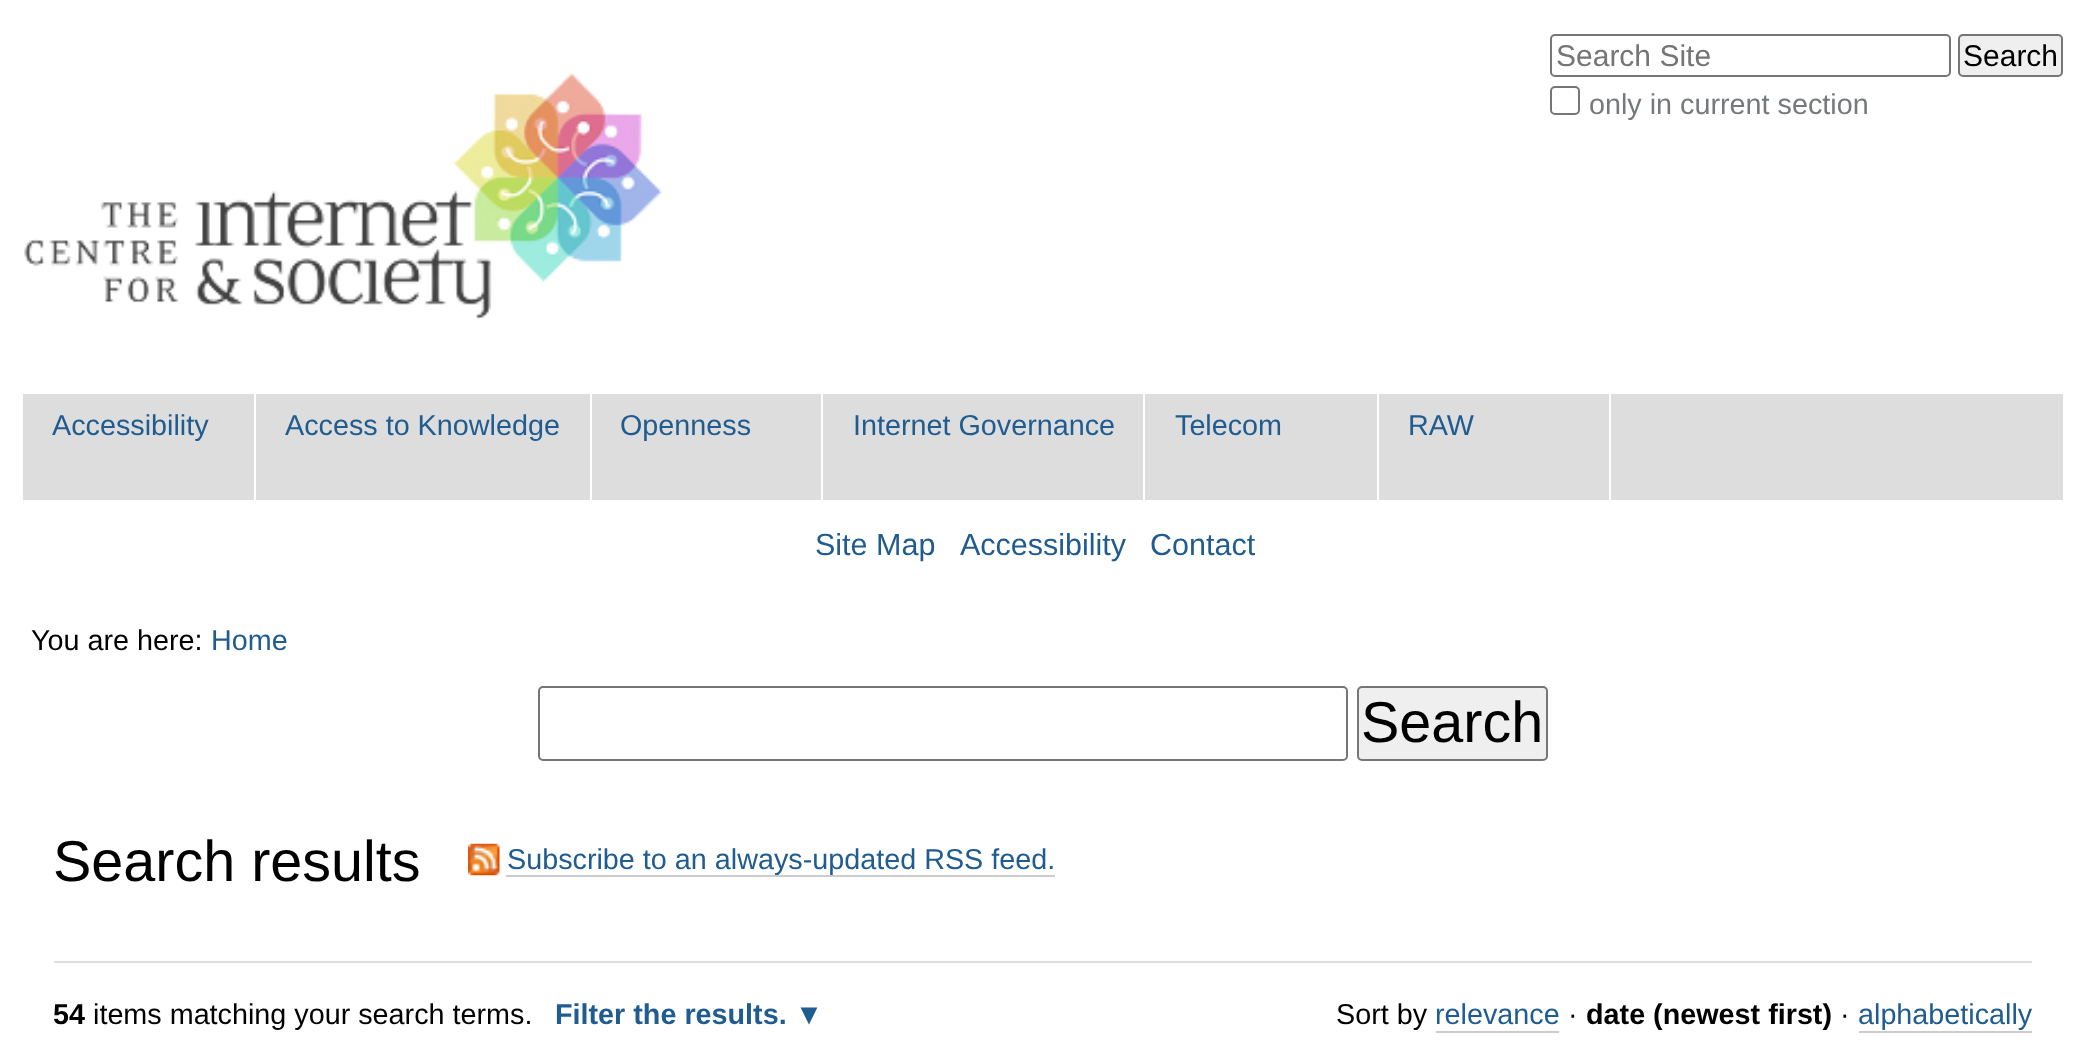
async function draw(canvas) {
  canvas.width = 2084
  canvas.height = 1056
  const ctx = canvas.getContext('2d')
  ctx.miterLimit = 4
  ctx.fontKerning = 'normal'
  async function loadImage(src) {
    const img = new Image()
    img.src = src
    await img.decode()
    return img
  }

  ctx.fillStyle = '#fff'
  ctx.fillRect(0, 0, 2084, 1056)
  ctx.drawImage(await loadImage('image0.png'), 24, 73, 638, 247)
  ctx.beginPath()
  ctx.roundRect(1551, 35, 399, 41, 4)
  ctx.strokeStyle = '#767676'
  ctx.lineWidth = 2
  ctx.stroke()
  ctx.font = '30px Liberation Sans'
  ctx.fillStyle = '#757575'
  ctx.fillText('Search Site', 1556, 66)
  ctx.fillStyle = '#efefef'
  ctx.beginPath()
  ctx.roundRect(1959, 35, 103, 41, 4)
  ctx.fill()
  ctx.stroke()
  ctx.fillStyle = '#000'
  ctx.fillText('Search', 1963, 66)
  ctx.beginPath()
  ctx.roundRect(1551, 87, 28, 27, 4)
  ctx.stroke()
  ctx.font = '28.75px Liberation Sans'
  ctx.fillStyle = '#76797c'
  ctx.fillText('only in current section', 1589, 114)
  ctx.fillStyle = '#ddd'
  ctx.fillRect(23, 394, 2040, 106)
  ctx.fillStyle = '#fff'
  ctx.fillRect(254, 394, 2, 106)
  ctx.fillStyle = '#205c90'
  ctx.fillText('Accessibility', 52, 435)
  ctx.fillStyle = '#fff'
  ctx.fillRect(590, 394, 2, 106)
  ctx.fillStyle = '#205c90'
  ctx.fillText('Access to Knowledge', 285, 435)
  ctx.fillStyle = '#fff'
  ctx.fillRect(821, 394, 2, 106)
  ctx.fillStyle = '#205c90'
  ctx.fillText('Openness', 620, 435)
  ctx.fillStyle = '#fff'
  ctx.fillRect(1143, 394, 2, 106)
  ctx.fillStyle = '#205c90'
  ctx.fillText('Internet Governance', 853, 435)
  ctx.fillStyle = '#fff'
  ctx.fillRect(1377, 394, 2, 106)
  ctx.fillStyle = '#205c90'
  ctx.fillText('Telecom', 1175, 435)
  ctx.fillStyle = '#fff'
  ctx.fillRect(1609, 394, 2, 106)
  ctx.fillStyle = '#205c90'
  ctx.fillText('RAW', 1408, 435)
  ctx.font = '30.5px Liberation Sans'
  ctx.fillText('Site Map', 815, 555)
  ctx.fillText('Accessibility', 960, 555)
  ctx.fillText('Contact', 1150, 555)
  ctx.font = '28.75px Liberation Sans'
  ctx.fillStyle = '#000'
  ctx.fillText('You are here:', 31, 650)
  ctx.fillStyle = '#205c90'
  ctx.fillText('Home', 211, 650)
  ctx.beginPath()
  ctx.roundRect(539, 687, 808, 73, 4)
  ctx.stroke()
  ctx.fillStyle = '#efefef'
  ctx.beginPath()
  ctx.roundRect(1358, 687, 189, 73, 4)
  ctx.fill()
  ctx.stroke()
  ctx.font = '57.5px Liberation Sans'
  ctx.fillStyle = '#000'
  ctx.fillText('Search', 1361, 742)
  ctx.fillText('Search results', 53, 881)
  ctx.drawImage(await loadImage('image1.png'), 468, 843, 32, 33)
  ctx.font = '28.75px Liberation Sans'
  ctx.fillStyle = '#205c90'
  ctx.fillText('Subscribe to an always-updated RSS feed.', 507, 869)
  ctx.fillStyle = '#ccc'
  ctx.fillRect(506, 875, 549, 2)
  ctx.fillStyle = '#ddd'
  ctx.fillRect(54, 961, 1978, 2)
  ctx.font = 'bold 28.75px Liberation Sans'
  ctx.fillStyle = '#000'
  ctx.fillText('54', 53, 1024)
  ctx.font = '28.75px Liberation Sans'
  ctx.fillText('items matching your search terms.', 93, 1024)
  ctx.font = 'bold 28.75px Liberation Sans'
  ctx.fillStyle = '#205c90'
  ctx.fillText('Filter the results. ▼', 555, 1024)
  ctx.font = '28.75px Liberation Sans'
  ctx.fillStyle = '#000'
  ctx.fillText('Sort by', 1336, 1024)
  ctx.fillStyle = '#205c90'
  ctx.fillText('relevance', 1435, 1024)
  ctx.fillStyle = '#ccc'
  ctx.fillRect(1436, 1031, 123, 2)
  ctx.fillStyle = '#000'
  ctx.fillText('·', 1568, 1024)
  ctx.font = 'bold 28.75px Liberation Sans'
  ctx.fillText('date (newest first)', 1586, 1024)
  ctx.font = '28.75px Liberation Sans'
  ctx.fillText('·', 1840, 1024)
  ctx.fillStyle = '#205c90'
  ctx.fillText('alphabetically', 1858, 1024)
  ctx.fillStyle = '#ccc'
  ctx.fillRect(1859, 1031, 173, 2)
}

draw(document.querySelector('canvas'))
